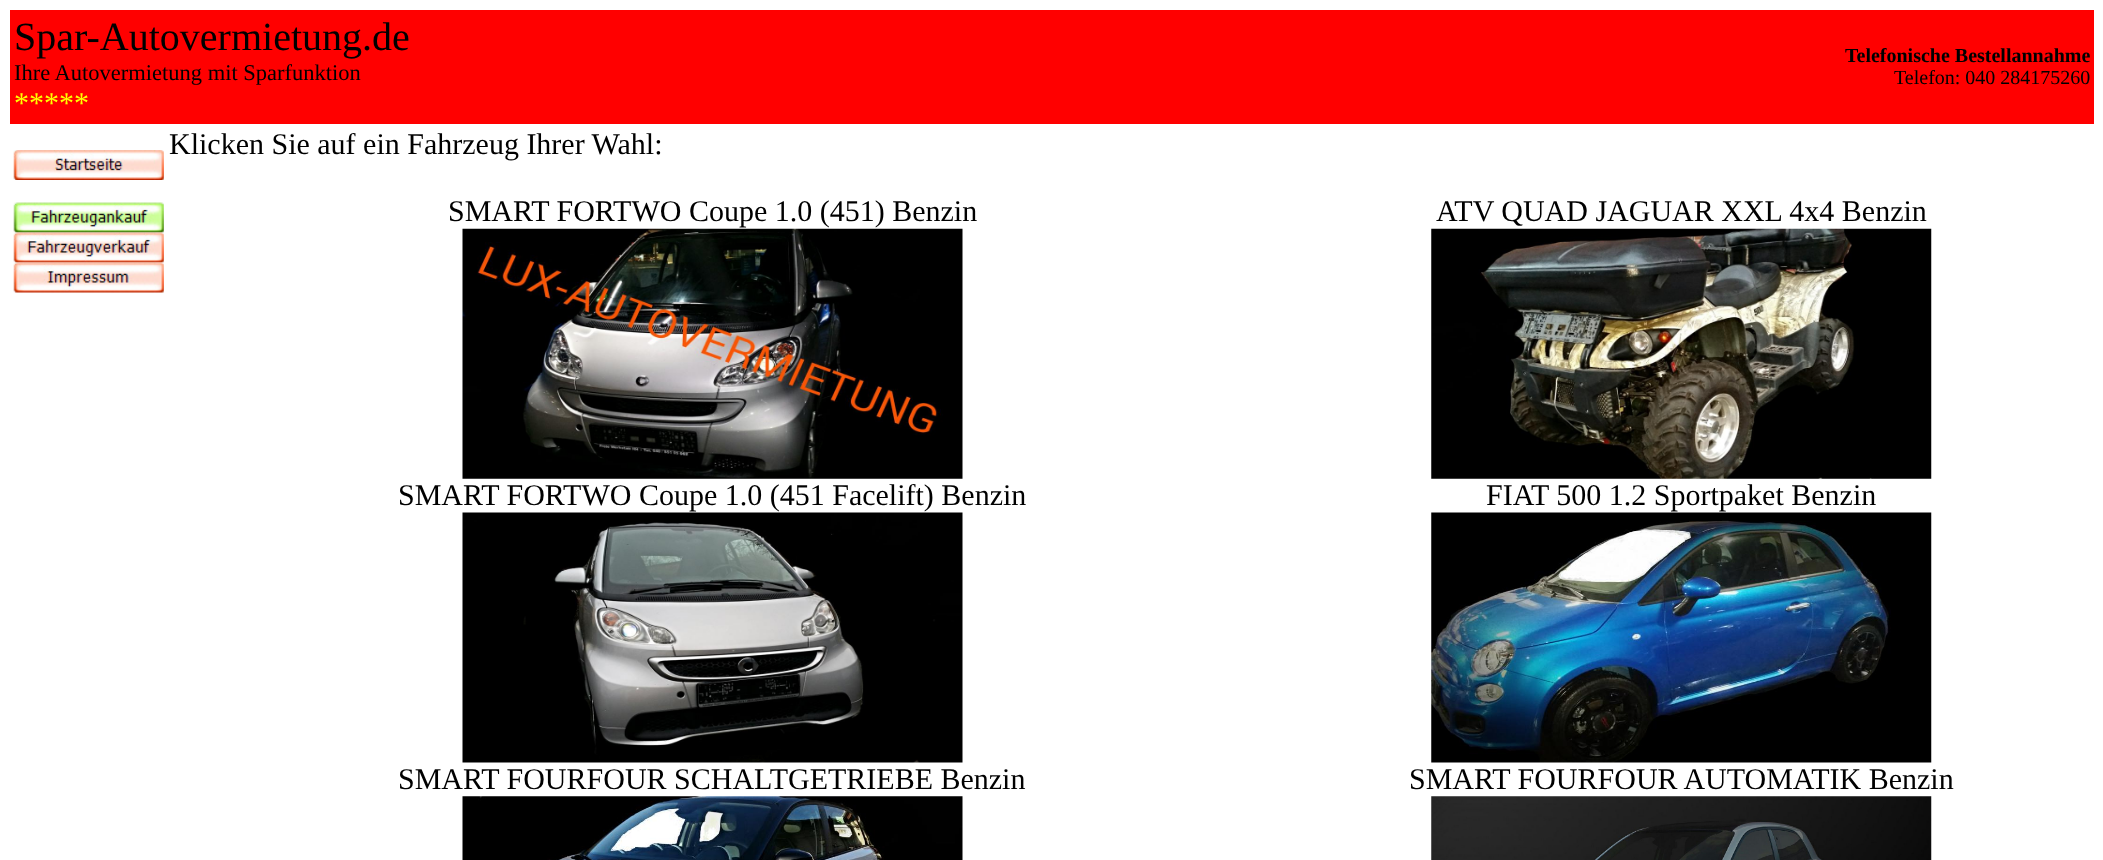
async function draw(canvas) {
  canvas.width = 2103
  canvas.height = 860
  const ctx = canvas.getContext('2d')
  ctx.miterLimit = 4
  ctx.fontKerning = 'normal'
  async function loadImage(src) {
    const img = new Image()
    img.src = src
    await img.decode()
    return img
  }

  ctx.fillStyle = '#fff'
  ctx.fillRect(0, 0, 2103, 860)
  ctx.fillStyle = '#f00'
  ctx.fillRect(10, 10, 2084, 114)
  ctx.font = '40px Liberation Serif'
  ctx.fillStyle = '#000'
  ctx.fillText('Spar-Autovermietung.de', 14, 50)
  ctx.font = '22.5px Liberation Serif'
  ctx.fillText('Ihre Autovermietung mit Sparfunktion', 14, 80)
  ctx.font = '30px Liberation Serif'
  ctx.fillStyle = '#ff0'
  ctx.fillText('*****', 14, 113)
  ctx.font = 'bold 20px Liberation Serif'
  ctx.fillStyle = '#000'
  ctx.fillText('Telefonische Bestellannahme', 1845, 62)
  ctx.font = '20px Liberation Serif'
  ctx.fillText('Telefon: 040 284175260', 1894, 84)
  ctx.drawImage(await loadImage('image0.png'), 13, 150, 151, 30)
  ctx.drawImage(await loadImage('image1.png'), 13, 202, 151, 31)
  ctx.drawImage(await loadImage('image2.png'), 13, 232, 151, 31)
  ctx.drawImage(await loadImage('image3.png'), 13, 262, 151, 31)
  ctx.font = '30px Liberation Serif'
  ctx.fillText('Klicken Sie auf ein Fahrzeug Ihrer Wahl:', 169, 154)
  ctx.fillText('SMART FORTWO Coupe 1.0 (451) Benzin', 448, 221)
  ctx.fillText('ATV QUAD JAGUAR XXL 4x4 Benzin', 1436, 221)
  ctx.drawImage(await loadImage('image4.png'), 462, 228, 501, 251)
  ctx.drawImage(await loadImage('image5.png'), 1431, 228, 501, 251)
  ctx.fillText('SMART FORTWO Coupe 1.0 (451 Facelift) Benzin', 398, 505)
  ctx.fillText('FIAT 500 1.2 Sportpaket Benzin', 1486, 505)
  ctx.drawImage(await loadImage('image6.png'), 462, 512, 501, 251)
  ctx.drawImage(await loadImage('image7.png'), 1431, 512, 501, 251)
  ctx.fillText('SMART FOURFOUR SCHALTGETRIEBE Benzin', 398, 789)
  ctx.fillText('SMART FOURFOUR AUTOMATIK Benzin', 1409, 789)
  ctx.drawImage(await loadImage('image8.png'), 462, 796, 501, 64)
  ctx.drawImage(await loadImage('image9.png'), 1431, 796, 501, 64)
}

draw(document.querySelector('canvas'))
